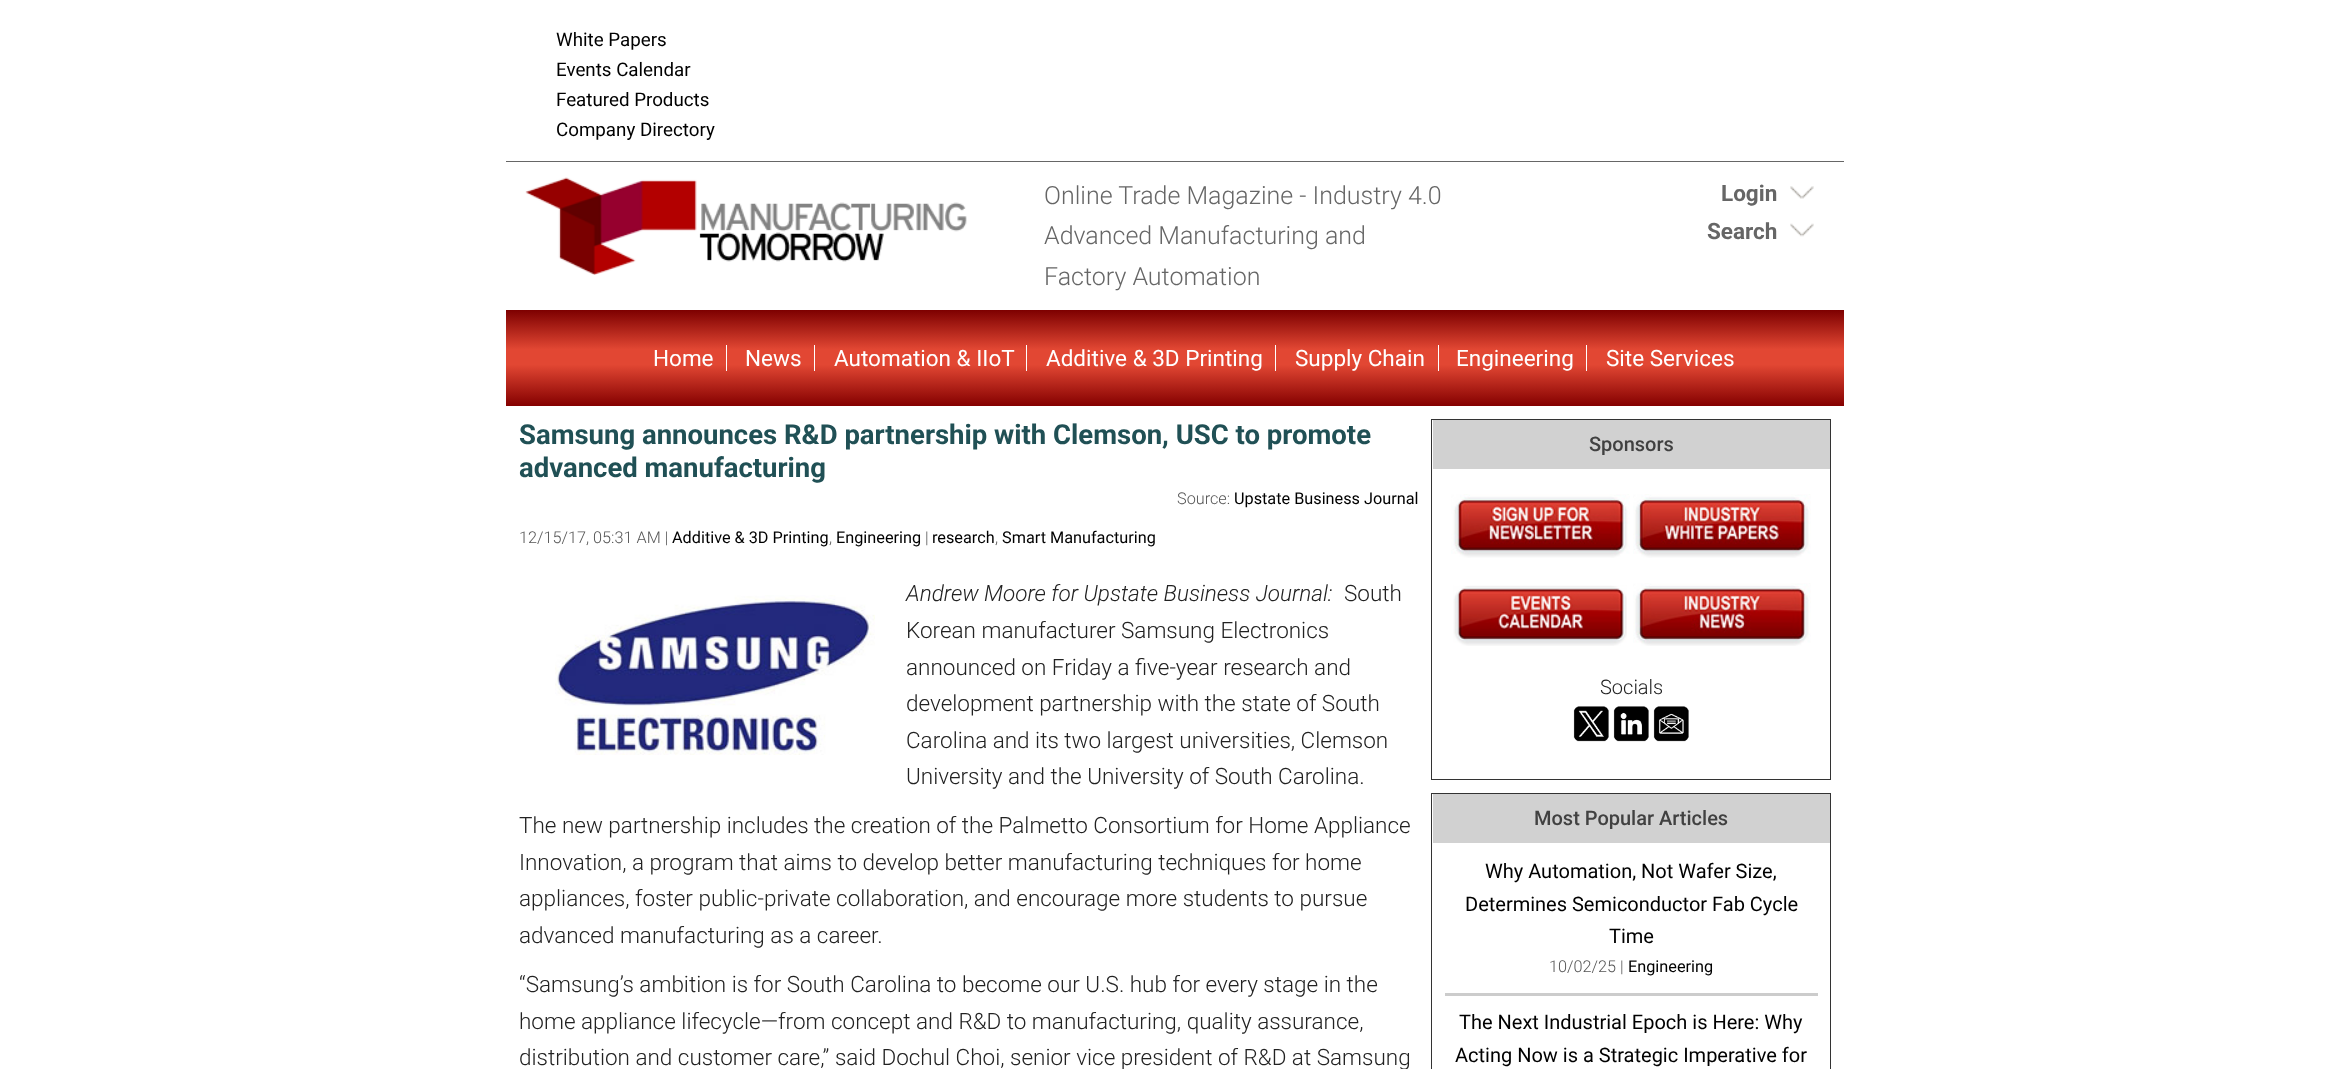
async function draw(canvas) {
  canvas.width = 2350
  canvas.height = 1069
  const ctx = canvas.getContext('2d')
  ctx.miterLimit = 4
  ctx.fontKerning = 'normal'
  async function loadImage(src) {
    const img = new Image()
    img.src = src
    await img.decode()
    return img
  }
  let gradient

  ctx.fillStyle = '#fff'
  ctx.fillRect(0, 0, 2350, 1069)
  ctx.font = '18.75px Roboto'
  ctx.fillStyle = '#000'
  ctx.fillText('White Papers', 556, 46)
  ctx.fillText('Events Calendar', 556, 76)
  ctx.fillText('Featured Products', 556, 106)
  ctx.fillText('Company Directory', 556, 136)
  ctx.fillStyle = '#666'
  ctx.fillRect(506, 161, 1338, 1)
  ctx.drawImage(await loadImage('image0.png'), 525, 177, 442, 98)
  ctx.font = '300 25px Roboto'
  ctx.fillText('Online Trade Magazine - Industry 4.0', 1044, 204)
  ctx.fillText('Advanced Manufacturing and', 1044, 244)
  ctx.fillText('Factory Automation', 1044, 285)
  ctx.drawImage(await loadImage('image1.png'), 1790, 186, 24, 13)
  ctx.font = 'bold 22.5px Roboto'
  ctx.fillText('Login', 1721, 201)
  ctx.drawImage(await loadImage('image2.png'), 1790, 223, 24, 14)
  ctx.fillText('Search', 1707, 239)
  gradient = ctx.createLinearGradient(1175, 310, 1175, 406)
  gradient.addColorStop(0, '#7d0000')
  gradient.addColorStop(0.41, '#e24733')
  gradient.addColorStop(0.57, '#e24733')
  gradient.addColorStop(1, '#840000')
  ctx.fillStyle = gradient
  ctx.fillRect(506, 310, 1338, 96)
  ctx.fillStyle = '#fff'
  ctx.fillRect(726, 345, 1, 26)
  ctx.font = '22.5px Roboto'
  ctx.fillText('Home', 653, 366)
  ctx.fillRect(814, 345, 1, 26)
  ctx.fillText('News', 745, 366)
  ctx.fillRect(1026, 345, 1, 26)
  ctx.fillText('Automation & IIoT', 834, 366)
  ctx.fillRect(1275, 345, 1, 26)
  ctx.fillText('Additive & 3D Printing', 1046, 366)
  ctx.fillRect(1438, 345, 1, 26)
  ctx.fillText('Supply Chain', 1295, 366)
  ctx.fillRect(1586, 345, 1, 26)
  ctx.fillText('Engineering', 1456, 366)
  ctx.fillText('Site Services', 1606, 366)
  ctx.font = 'bold 27.5px Roboto'
  ctx.fillStyle = '#205055'
  ctx.fillText('Samsung announces R&D partnership with Clemson, USC to promote', 519, 444)
  ctx.fillText('advanced manufacturing', 519, 477)
  ctx.font = '300 16.25px Roboto'
  ctx.fillStyle = '#555'
  ctx.fillText('Source:', 1177, 504)
  ctx.font = '16.25px Roboto'
  ctx.fillStyle = '#000'
  ctx.fillText('Upstate Business Journal', 1234, 504)
  ctx.font = '300 16.25px Roboto'
  ctx.fillStyle = '#555'
  ctx.fillText('12/15/17, 05:31 AM |', 519, 543)
  ctx.font = '16.25px Roboto'
  ctx.fillStyle = '#000'
  ctx.fillText('Additive & 3D Printing', 672, 543)
  ctx.font = '300 16.25px Roboto'
  ctx.fillStyle = '#555'
  ctx.fillText(',', 829, 543)
  ctx.font = '16.25px Roboto'
  ctx.fillStyle = '#000'
  ctx.fillText('Engineering', 836, 543)
  ctx.font = '300 16.25px Roboto'
  ctx.fillStyle = '#555'
  ctx.fillText('|', 925, 543)
  ctx.font = '16.25px Roboto'
  ctx.fillStyle = '#000'
  ctx.fillText('research', 932, 543)
  ctx.font = '300 16.25px Roboto'
  ctx.fillStyle = '#555'
  ctx.fillText(',', 995, 543)
  ctx.font = '16.25px Roboto'
  ctx.fillStyle = '#000'
  ctx.fillText('Smart Manufacturing', 1002, 543)
  ctx.drawImage(await loadImage('image3.png'), 555, 595, 320, 160)
  ctx.font = 'italic 300 22.5px Roboto'
  ctx.fillStyle = '#222'
  ctx.fillText('Andrew Moore for Upstate Business Journal:', 906, 601)
  ctx.font = '300 22.5px Roboto'
  ctx.fillText('South', 1344, 601)
  ctx.fillText('Korean manufacturer Samsung Electronics', 906, 638)
  ctx.fillText('announced on Friday a five-year research and', 906, 675)
  ctx.fillText('development partnership with the state of South', 906, 711)
  ctx.fillText('Carolina and its two largest universities, Clemson', 906, 748)
  ctx.fillText('University and the University of South Carolina.', 906, 784)
  ctx.fillText('The new partnership includes the creation of the Palmetto Consortium for Home Appliance', 519, 833)
  ctx.fillText('Innovation, a program that aims to develop better manufacturing techniques for home', 519, 870)
  ctx.fillText('appliances, foster public-private collaboration, and encourage more students to pursue', 519, 906)
  ctx.fillText('advanced manufacturing as a career.', 519, 943)
  ctx.fillText('“Samsung’s ambition is for South Carolina to become our U.S. hub for every stage in the', 519, 992)
  ctx.fillText('home appliance lifecycle—from concept and R&D to manufacturing, quality assurance,', 519, 1029)
  ctx.fillText('distribution and customer care,” said Dochul Choi, senior vice president of R&D at Samsung', 519, 1065)
  ctx.strokeStyle = '#333'
  ctx.strokeRect(1431.5, 419.5, 399, 360)
  ctx.fillStyle = '#d1d1d1'
  ctx.fillRect(1433, 420, 397, 49)
  ctx.font = '500 20px Roboto'
  ctx.fillStyle = '#414141'
  ctx.fillText('Sponsors', 1589, 451)
  ctx.drawImage(await loadImage('image4.png'), 1451, 494, 179, 64)
  ctx.drawImage(await loadImage('image5.png'), 1633, 494, 178, 64)
  ctx.drawImage(await loadImage('image6.png'), 1453, 585, 174, 61)
  ctx.drawImage(await loadImage('image7.png'), 1633, 583, 178, 63)
  ctx.font = '300 20px Roboto'
  ctx.fillStyle = '#222'
  ctx.fillText('Socials', 1600, 694)
  ctx.drawImage(await loadImage('image8.png'), 1573, 706, 36, 36)
  ctx.drawImage(await loadImage('image9.png'), 1613, 706, 36, 36)
  ctx.drawImage(await loadImage('image10.png'), 1653, 706, 36, 36)
  ctx.strokeRect(1431.5, 793.5, 399, 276)
  ctx.fillStyle = '#d1d1d1'
  ctx.fillRect(1433, 794, 397, 49)
  ctx.font = '500 20px Roboto'
  ctx.fillStyle = '#414141'
  ctx.fillText('Most Popular Articles', 1534, 825)
  ctx.fillStyle = '#ccc'
  ctx.fillRect(1445, 993, 373, 3)
  ctx.font = '20px Roboto'
  ctx.fillStyle = '#000'
  ctx.fillText('Why Automation, Not Wafer Size,', 1485, 878)
  ctx.fillText('Determines Semiconductor Fab Cycle', 1465, 911)
  ctx.fillText('Time', 1609, 943)
  ctx.font = '300 16.25px Roboto'
  ctx.fillStyle = '#555'
  ctx.fillText('10/02/25 |', 1549, 972)
  ctx.font = '16.25px Roboto'
  ctx.fillStyle = '#000'
  ctx.fillText('Engineering', 1628, 972)
  ctx.font = '20px Roboto'
  ctx.fillText('The Next Industrial Epoch is Here: Why', 1459, 1029)
  ctx.fillText('Acting Now is a Strategic Imperative for', 1455, 1062)
}

draw(document.querySelector('canvas'))
